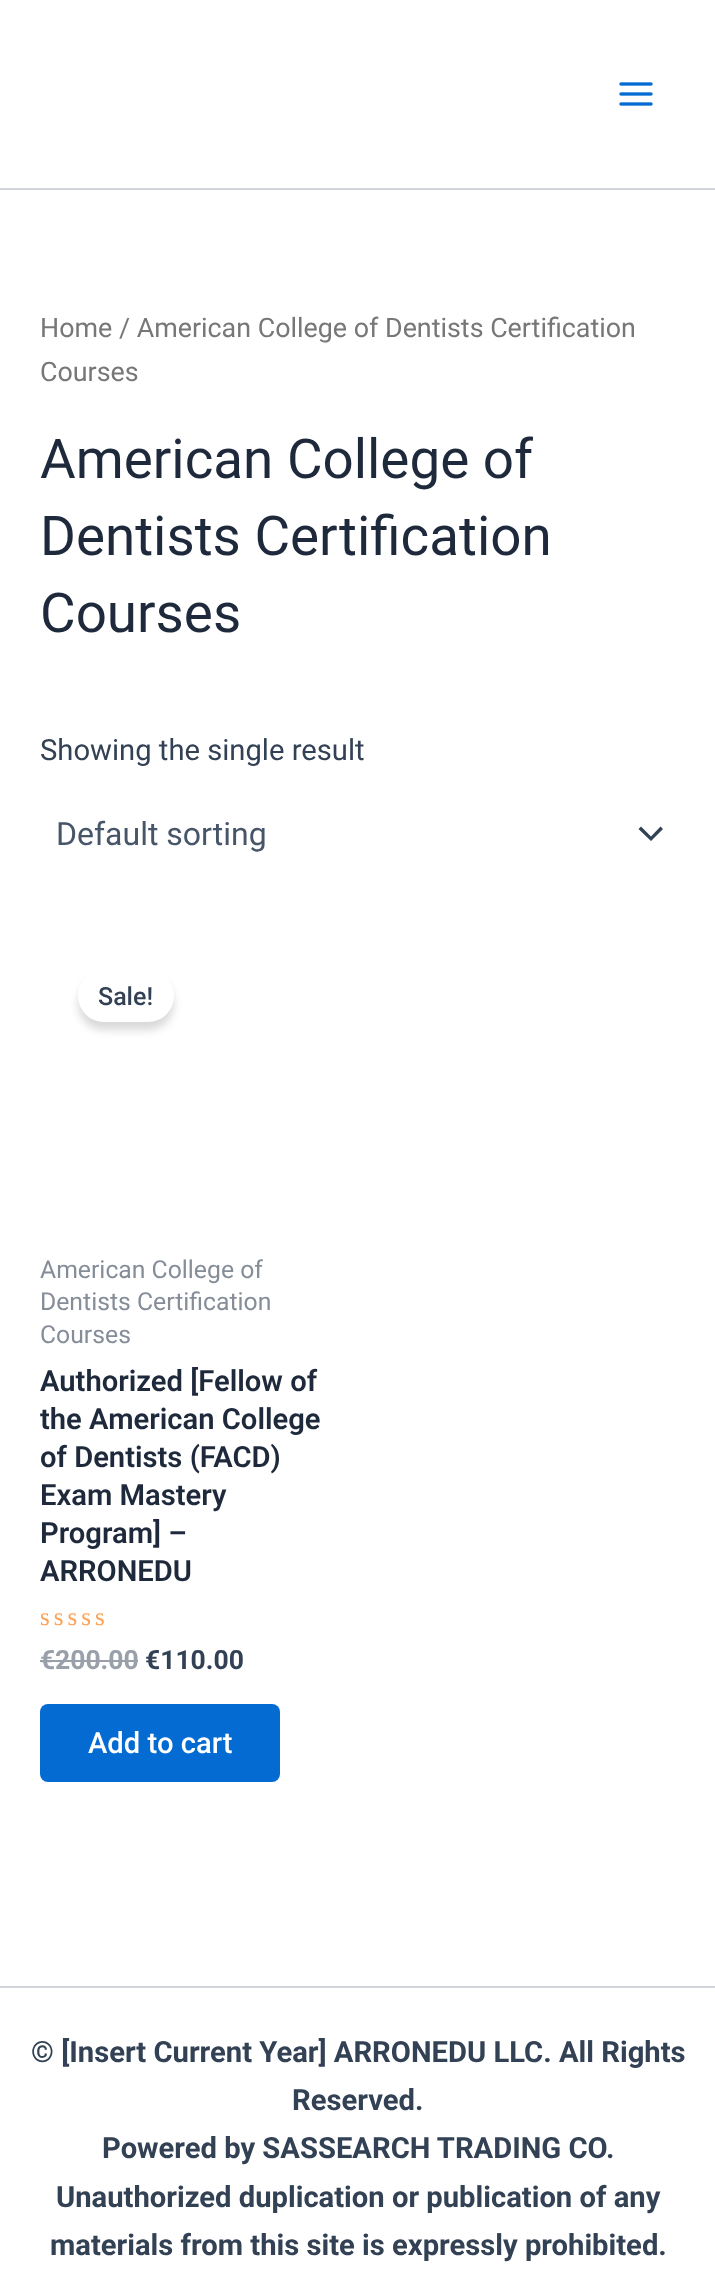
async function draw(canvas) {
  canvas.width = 715
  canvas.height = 2294
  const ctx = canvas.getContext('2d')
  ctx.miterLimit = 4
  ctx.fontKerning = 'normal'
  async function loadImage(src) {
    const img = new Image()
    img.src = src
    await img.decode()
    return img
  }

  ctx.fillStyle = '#fff'
  ctx.fillRect(0, 0, 715, 2294)
  ctx.fillStyle = '#d1d5db'
  ctx.fillRect(0, 188, 715, 2)
  ctx.drawImage(await loadImage('image0.png'), 619, 82, 34, 24)
  ctx.font = '26.85px Roboto'
  ctx.fillStyle = '#777'
  ctx.fillText('Home / American College of Dentists Certification', 40, 337)
  ctx.fillText('Courses', 40, 381)
  ctx.font = '54.75px Roboto'
  ctx.fillStyle = '#1e293b'
  ctx.fillText('American College of', 40, 478)
  ctx.fillText('Dentists Certification', 40, 555)
  ctx.fillText('Courses', 40, 632)
  ctx.font = '29.2px Roboto'
  ctx.fillStyle = '#334155'
  ctx.fillText('Showing the single result', 40, 760)
  ctx.beginPath()
  ctx.moveTo(638.5, 829)
  ctx.lineTo(651, 841)
  ctx.lineTo(663, 829)
  ctx.lineTo(660.5, 826.5)
  ctx.lineTo(651, 836.5)
  ctx.lineTo(641, 826.5)
  ctx.closePath()
  ctx.fill()
  ctx.font = '32px Roboto'
  ctx.fillStyle = '#475569'
  ctx.fillText('Default sorting', 56, 845)
  ctx.fillStyle = '#00000026'
  ctx.filter = 'blur(4px)'
  ctx.beginPath()
  ctx.roundRect(78, 978, 96, 52, 26)
  ctx.fill()
  ctx.filter = 'none'
  ctx.fillStyle = '#fff'
  ctx.beginPath()
  ctx.roundRect(78, 970, 96, 52, 26)
  ctx.fill()
  ctx.font = '500 25px Roboto'
  ctx.fillStyle = '#334155'
  ctx.fillText('Sale!', 98, 1005)
  ctx.font = '24.75px Roboto'
  ctx.fillStyle = '#858d99'
  ctx.fillText('American College of', 40, 1278)
  ctx.fillText('Dentists Certification', 40, 1310)
  ctx.fillText('Courses', 40, 1343)
  ctx.font = '600 29.2px Roboto'
  ctx.fillStyle = '#1e293b'
  ctx.fillText('Authorized [Fellow of', 40, 1391)
  ctx.fillText('the American College', 40, 1429)
  ctx.fillText('of Dentists (FACD)', 40, 1467)
  ctx.fillText('Exam Mastery', 40, 1505)
  ctx.fillText('Program] –', 40, 1543)
  ctx.fillText('ARRONEDU', 40, 1581)
  ctx.letterSpacing = '4px'
  ctx.font = '25px Liberation Serif'
  ctx.fillStyle = '#fda256'
  ctx.fillText('sssss', 40, 1625)
  ctx.letterSpacing = '0px'
  ctx.font = 'bold 26.5px Roboto'
  ctx.fillStyle = '#99a0aa'
  ctx.fillText('€', 40, 1669)
  ctx.fillRect(40, 1660, 16, 2)
  ctx.fillText('200.00', 55, 1669)
  ctx.fillRect(56, 1660, 82, 2)
  ctx.fillStyle = '#334155'
  ctx.fillText('€110.00', 145, 1669)
  ctx.fillStyle = '#046bd2'
  ctx.beginPath()
  ctx.roundRect(40, 1704, 240, 78, 8)
  ctx.fill()
  ctx.font = '500 29.2px Roboto'
  ctx.fillStyle = '#fff'
  ctx.fillText('Add to cart', 88, 1753)
  ctx.fillStyle = '#d1d5db'
  ctx.fillRect(0, 1986, 715, 2)
  ctx.font = 'bold 29.2px Roboto'
  ctx.fillStyle = '#334155'
  ctx.fillText('© [Insert Current Year] ARRONEDU LLC. All Rights', 31, 2062)
  ctx.fillText('Reserved.', 292, 2110)
  ctx.fillText('Powered by SASSEARCH TRADING CO.', 102, 2158)
  ctx.fillText('Unauthorized duplication or publication of any', 56, 2207)
  ctx.fillText('materials from this site is expressly prohibited.', 50, 2255)
}

draw(document.querySelector('canvas'))
